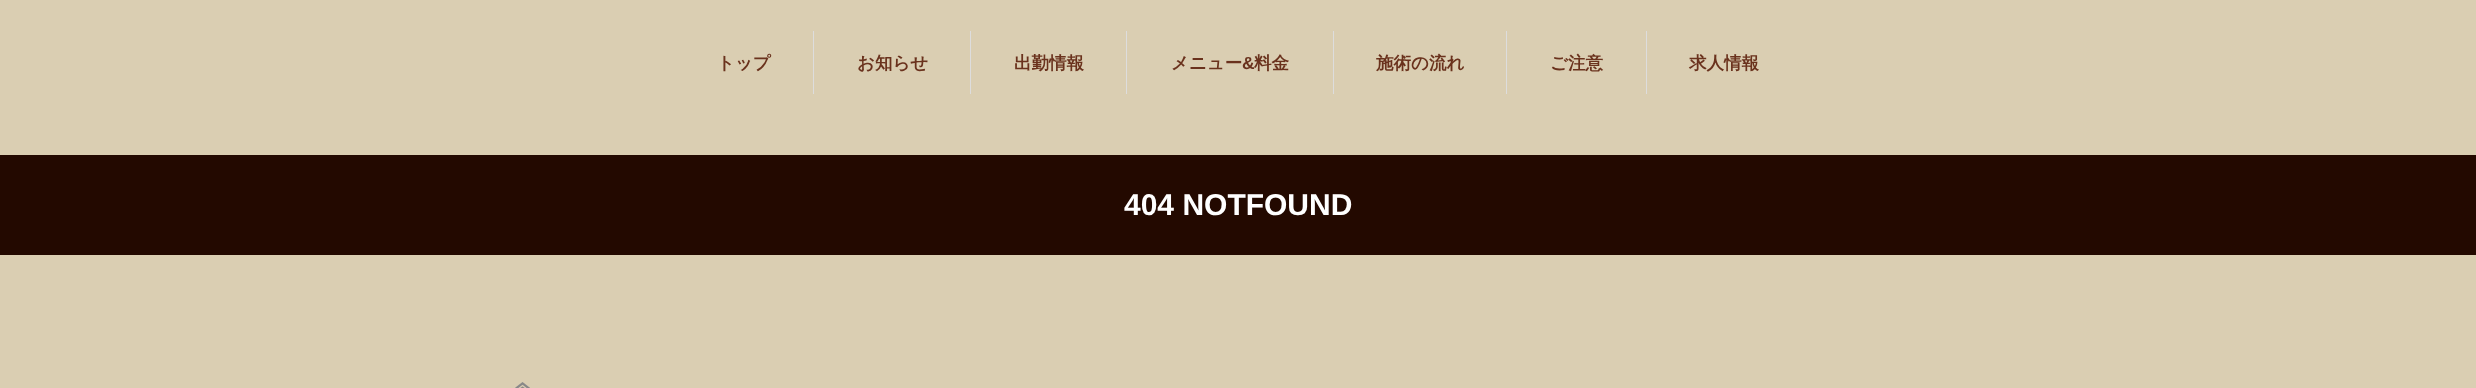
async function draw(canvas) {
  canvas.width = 2476
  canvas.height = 388
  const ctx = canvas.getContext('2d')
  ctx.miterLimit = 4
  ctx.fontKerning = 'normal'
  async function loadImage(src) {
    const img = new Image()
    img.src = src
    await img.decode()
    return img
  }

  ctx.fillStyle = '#daceb2'
  ctx.fillRect(0, 0, 2476, 388)
  ctx.font = 'bold 17.5px WenQuanYi Zen Hei'
  ctx.fillStyle = '#6a321d'
  ctx.fillText('トップ', 717, 69)
  ctx.fillStyle = '#ddd'
  ctx.fillRect(813, 31, 1, 63)
  ctx.fillStyle = '#6a321d'
  ctx.fillText('お知らせ', 857, 69)
  ctx.fillStyle = '#ddd'
  ctx.fillRect(970, 31, 1, 63)
  ctx.fillStyle = '#6a321d'
  ctx.fillText('出勤情報', 1014, 69)
  ctx.fillStyle = '#ddd'
  ctx.fillRect(1126, 31, 1, 63)
  ctx.fillStyle = '#6a321d'
  ctx.fillText('メニュー', 1171, 69)
  ctx.font = 'bold 17.5px Liberation Sans'
  ctx.fillText('&', 1242, 69)
  ctx.font = 'bold 17.5px WenQuanYi Zen Hei'
  ctx.fillText('料金', 1254, 69)
  ctx.fillStyle = '#ddd'
  ctx.fillRect(1333, 31, 1, 63)
  ctx.fillStyle = '#6a321d'
  ctx.fillText('施術の流れ', 1376, 69)
  ctx.fillStyle = '#ddd'
  ctx.fillRect(1506, 31, 1, 63)
  ctx.fillStyle = '#6a321d'
  ctx.fillText('ご注意', 1550, 69)
  ctx.fillStyle = '#ddd'
  ctx.fillRect(1646, 31, 1, 63)
  ctx.fillStyle = '#6a321d'
  ctx.fillText('求人情報', 1689, 69)
  ctx.fillStyle = '#230900'
  ctx.fillRect(0, 155, 2476, 100)
  ctx.font = 'bold 30px Liberation Sans'
  ctx.fillStyle = '#fff'
  ctx.fillText('404 NOTFOUND', 1124, 215)
  ctx.drawImage(await loadImage('image0.png'), 515, 382, 15, 6)
}

draw(document.querySelector('canvas'))
